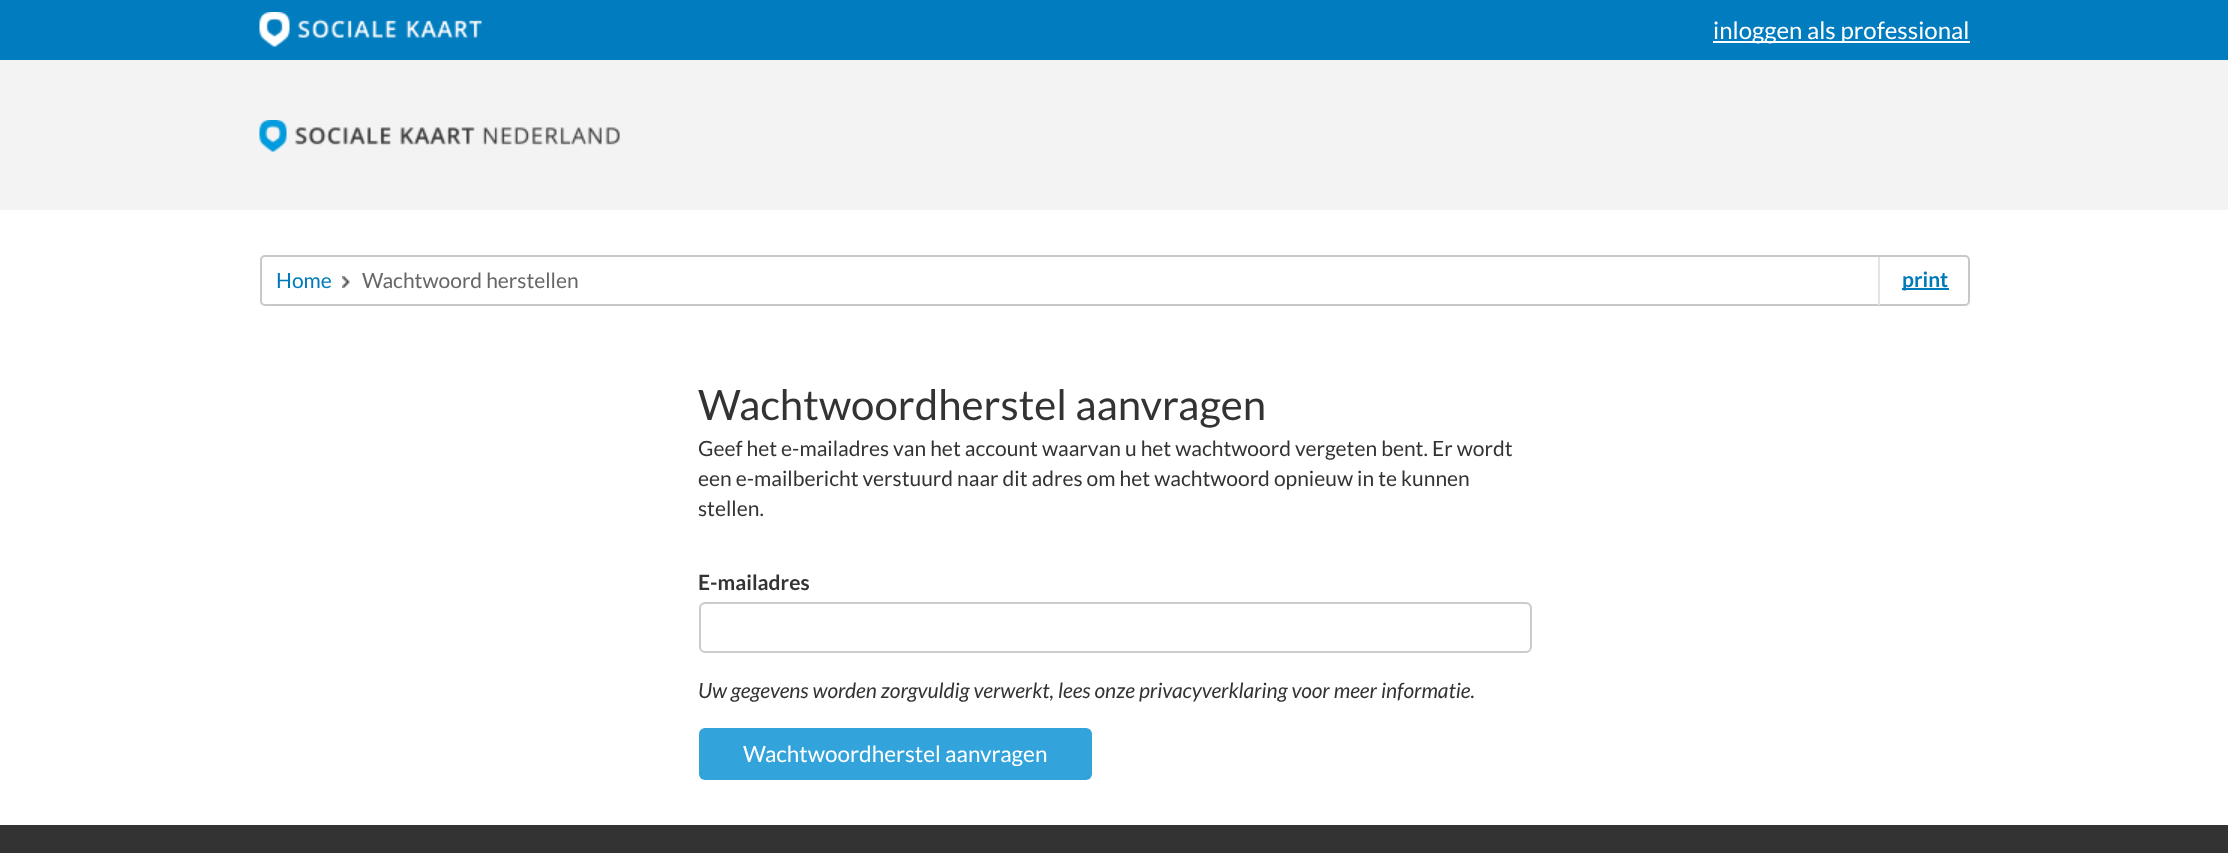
async function draw(canvas) {
  canvas.width = 2228
  canvas.height = 853
  const ctx = canvas.getContext('2d')
  ctx.miterLimit = 4
  ctx.fontKerning = 'normal'
  async function loadImage(src) {
    const img = new Image()
    img.src = src
    await img.decode()
    return img
  }

  ctx.fillStyle = '#fff'
  ctx.fillRect(0, 0, 2228, 853)
  ctx.fillStyle = '#007cbf'
  ctx.fillRect(0, 0, 2228, 60)
  ctx.drawImage(await loadImage('image0.png'), 259, 12, 223, 35)
  ctx.fillStyle = '#fff'
  ctx.fillRect(1713, 41, 257, 2)
  ctx.font = '24px Lato'
  ctx.fillText('inloggen als professional', 1713, 39)
  ctx.fillStyle = '#f3f3f3'
  ctx.fillRect(0, 60, 2228, 150)
  ctx.drawImage(await loadImage('image1.png'), 259, 120, 361, 32)
  ctx.beginPath()
  ctx.roundRect(261, 256, 1708, 49, 4)
  ctx.strokeStyle = '#c8c8c8'
  ctx.lineWidth = 2
  ctx.stroke()
  ctx.font = '21px Lato'
  ctx.fillStyle = '#007bba'
  ctx.fillText('Home', 276, 288)
  ctx.drawImage(await loadImage('image2.png'), 342, 276, 8, 12)
  ctx.fillStyle = '#666'
  ctx.fillText('Wachtwoord herstellen', 362, 288)
  ctx.fillStyle = '#e3e3e3'
  ctx.fillRect(1878, 257, 2, 48)
  ctx.fillStyle = '#007bba'
  ctx.fillRect(1902, 288, 47, 2)
  ctx.font = 'bold 21px Lato'
  ctx.fillText('print', 1902, 287)
  ctx.font = '42px Lato'
  ctx.fillStyle = '#333'
  ctx.fillText('Wachtwoordherstel aanvragen', 698, 420)
  ctx.font = '21px Lato'
  ctx.fillText('Geef het e-mailadres van het account waarvan u het wachtwoord vergeten bent. Er wordt', 698, 456)
  ctx.fillText('een e-mailbericht verstuurd naar dit adres om het wachtwoord opnieuw in te kunnen', 698, 486)
  ctx.fillText('stellen.', 698, 516)
  ctx.font = 'bold 21px Lato'
  ctx.fillText('E-mailadres', 698, 590)
  ctx.fillStyle = '#ececec'
  ctx.beginPath()
  ctx.moveTo(705, 604)
  ctx.lineTo(1526, 604)
  ctx.bezierCurveTo(1528, 604, 1530, 607, 1530, 609)
  ctx.lineTo(1530, 608)
  ctx.bezierCurveTo(1530, 605, 1528, 603, 1525, 603)
  ctx.lineTo(706, 603)
  ctx.bezierCurveTo(704, 603, 702, 604, 701, 606)
  ctx.bezierCurveTo(702, 605, 704, 604, 705, 604)
  ctx.closePath()
  ctx.fill()
  ctx.beginPath()
  ctx.roundRect(700, 603, 831, 49, 5)
  ctx.strokeStyle = '#ccc'
  ctx.stroke()
  ctx.font = 'italic 21px Lato'
  ctx.fillStyle = '#333'
  ctx.fillText('Uw gegevens worden zorgvuldig verwerkt, lees onze privacyverklaring voor meer informatie.', 698, 698)
  ctx.fillStyle = '#33a3dc'
  ctx.beginPath()
  ctx.roundRect(699, 728, 393, 52, 6)
  ctx.fill()
  ctx.font = '22.5px Lato'
  ctx.fillStyle = '#fff'
  ctx.fillText('Wachtwoordherstel aanvragen', 743, 762)
  ctx.fillStyle = '#333'
  ctx.fillRect(0, 825, 2228, 28)
}

draw(document.querySelector('canvas'))
